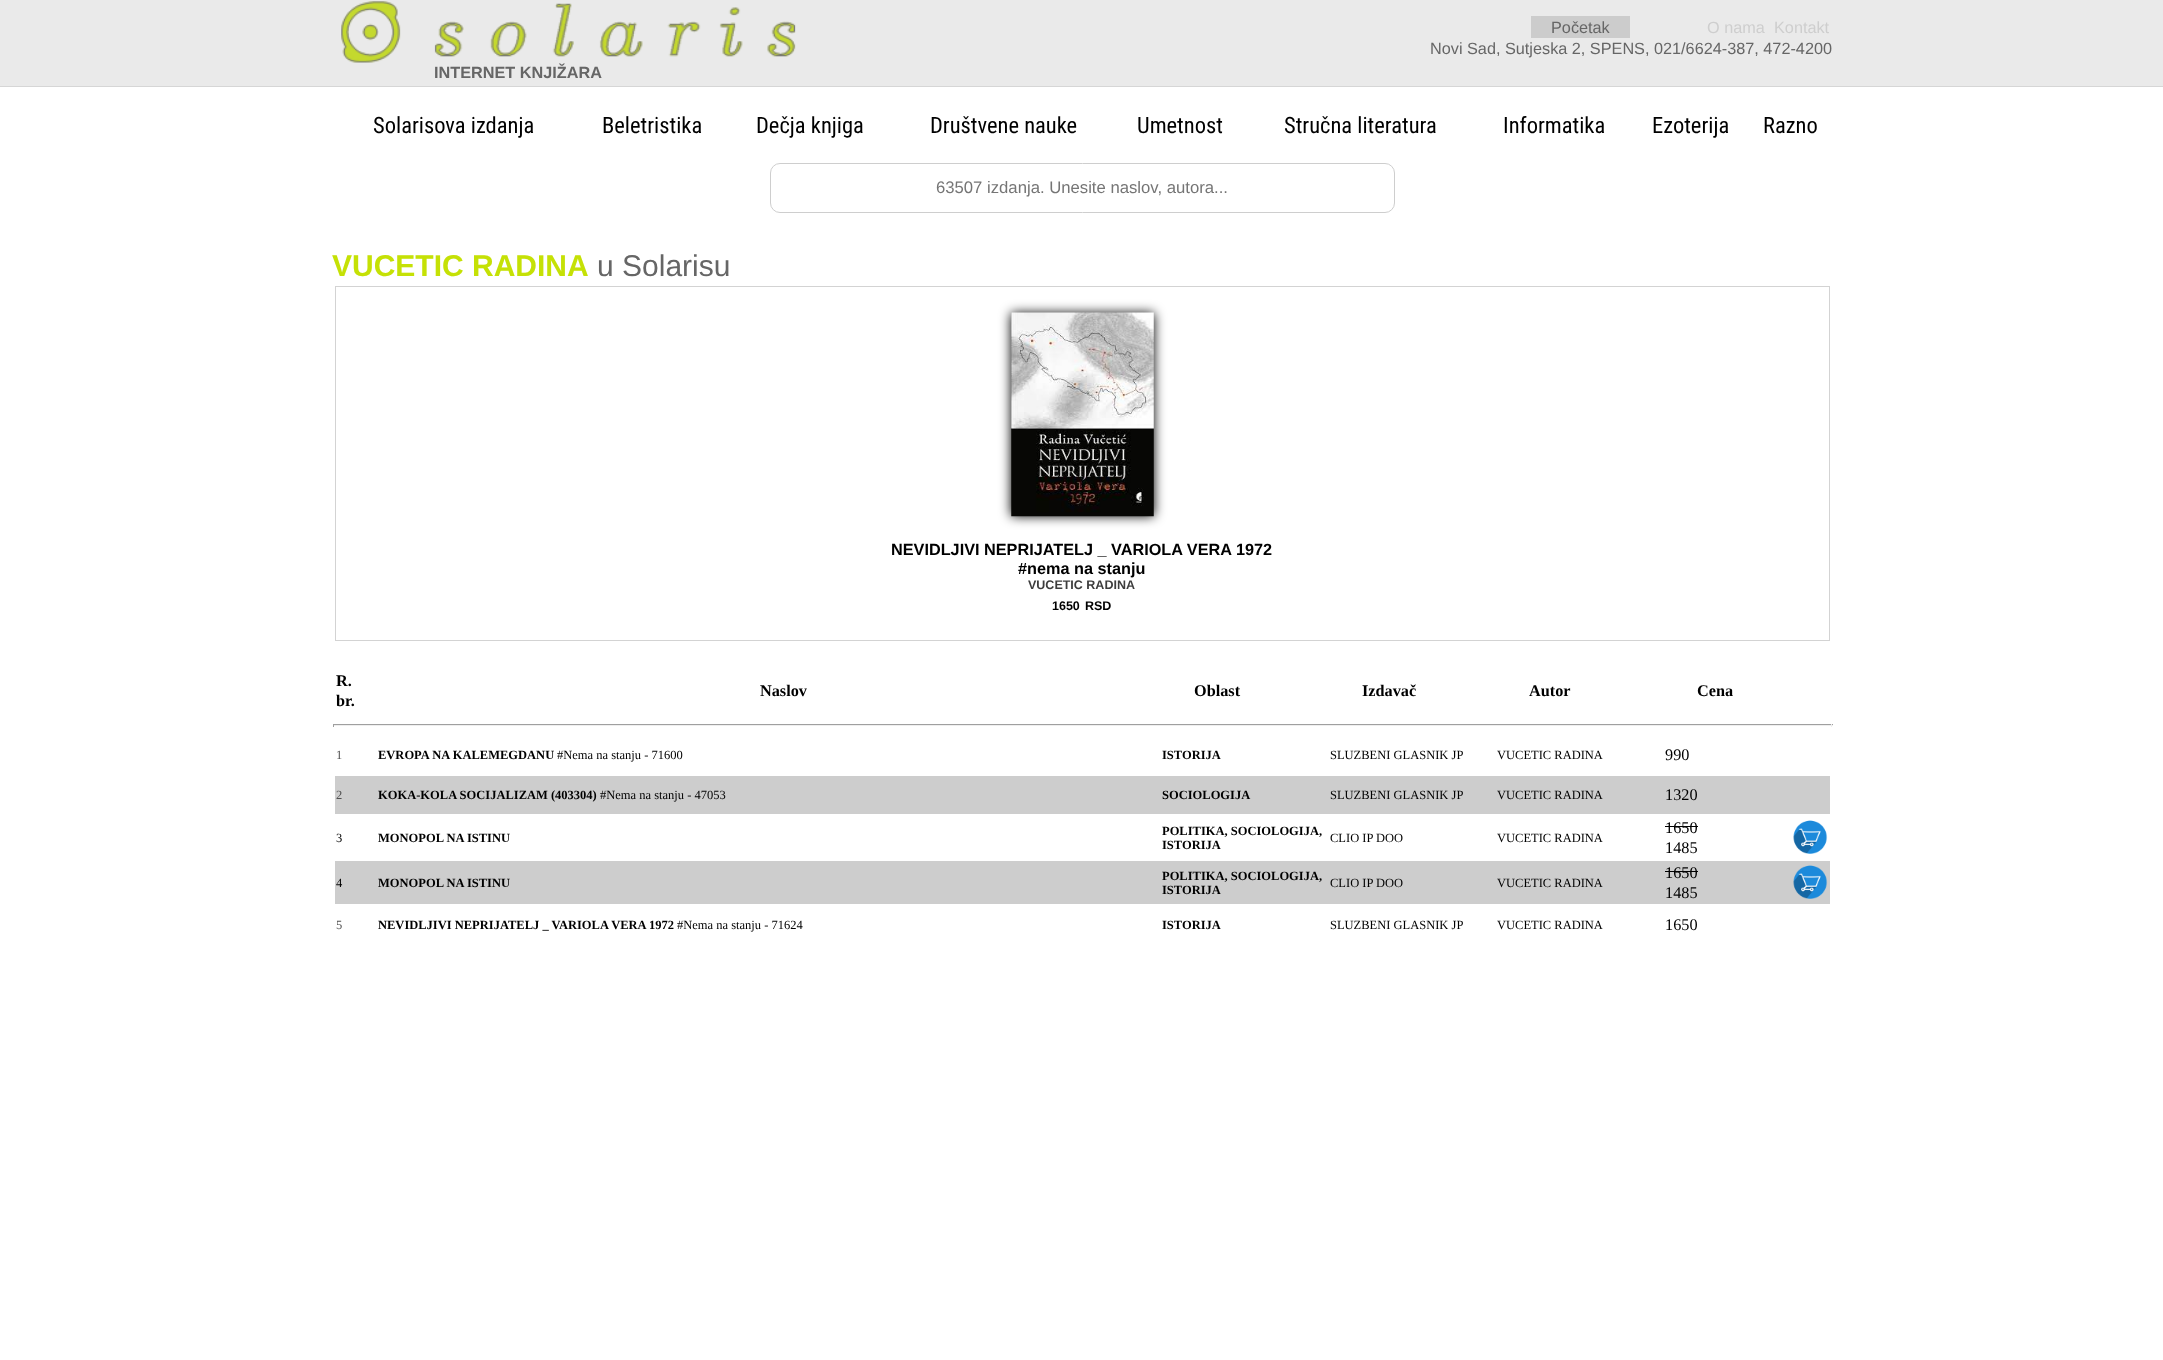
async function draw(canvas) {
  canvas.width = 2163
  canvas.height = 1360
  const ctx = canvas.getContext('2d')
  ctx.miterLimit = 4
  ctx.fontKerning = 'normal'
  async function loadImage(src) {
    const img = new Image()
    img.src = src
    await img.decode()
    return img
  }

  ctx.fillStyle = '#fff'
  ctx.fillRect(0, 0, 2163, 1360)
  ctx.fillStyle = '#d6d6d6'
  ctx.fillRect(0, 86, 2163, 1)
  ctx.fillStyle = '#eaeaea'
  ctx.fillRect(0, 0, 2163, 86)
  ctx.drawImage(await loadImage('image0.png'), 341, 1, 455, 62)
  ctx.fillStyle = '#ccc'
  ctx.fillRect(1531, 16, 99, 22)
  ctx.font = '16.25px Liberation Sans'
  ctx.fillStyle = '#666'
  ctx.fillText('Početak', 1551, 33)
  ctx.fillStyle = '#cecece'
  ctx.fillText('O nama', 1707, 33)
  ctx.fillText('Kontakt', 1774, 33)
  ctx.fillStyle = '#666'
  ctx.fillText('Novi Sad, Sutjeska 2, SPENS, 021/6624-387, 472-4200', 1430, 54)
  ctx.font = 'bold 16.25px Liberation Sans'
  ctx.fillText('INTERNET KNJIŽARA', 434, 78)
  ctx.font = '22.5px Roboto Condensed'
  ctx.fillStyle = '#000'
  ctx.fillText('Solarisova izdanja', 373, 133)
  ctx.fillText('Beletristika', 602, 133)
  ctx.fillText('Dečja knjiga', 756, 133)
  ctx.fillText('Društvene nauke', 930, 133)
  ctx.fillText('Umetnost', 1137, 133)
  ctx.fillText('Stručna literatura', 1284, 133)
  ctx.fillText('Informatika', 1503, 133)
  ctx.fillText('Ezoterija', 1652, 133)
  ctx.fillText('Razno', 1763, 133)
  ctx.beginPath()
  ctx.roundRect(770.5, 163.5, 624, 49, 9.5)
  ctx.strokeStyle = '#cecece'
  ctx.stroke()
  ctx.font = '16.7px Liberation Sans'
  ctx.fillStyle = '#757575'
  ctx.fillText('63507 izdanja. Unesite naslov, autora...', 936, 193)
  ctx.font = 'bold 30px Liberation Sans'
  ctx.fillStyle = '#c5e105'
  ctx.fillText('VUCETIC RADINA', 332, 276)
  ctx.font = '30px Liberation Sans'
  ctx.fillStyle = '#666'
  ctx.fillText('u Solarisu', 597, 276)
  ctx.strokeStyle = '#d3d3d3'
  ctx.strokeRect(335.5, 286.5, 1494, 354)
  ctx.fillStyle = '#000'
  ctx.filter = 'blur(6px)'
  ctx.beginPath()
  ctx.rect(1011, 313, 143, 203)
  ctx.fill()
  ctx.filter = 'none'
  ctx.drawImage(await loadImage('image1.png'), 1011, 312, 143, 205)
  ctx.font = 'bold 16.25px Liberation Sans'
  ctx.fillText('NEVIDLJIVI NEPRIJATELJ _ VARIOLA VERA 1972', 891, 555)
  ctx.fillText('#nema na stanju', 1018, 574)
  ctx.font = 'bold 12.5px Liberation Sans'
  ctx.fillStyle = '#3d3d3d'
  ctx.fillText('VUCETIC RADINA', 1028, 589)
  ctx.fillStyle = '#000'
  ctx.fillText('1650', 1052, 610)
  ctx.fillText('RSD', 1085, 610)
  ctx.font = 'bold 16.25px Liberation Serif'
  ctx.fillText('R.', 336, 686)
  ctx.fillText('br.', 336, 706)
  ctx.fillText('Naslov', 760, 696)
  ctx.fillText('Oblast', 1194, 696)
  ctx.fillText('Izdavač', 1362, 696)
  ctx.fillText('Autor', 1529, 696)
  ctx.fillText('Cena', 1697, 696)
  ctx.fillStyle = '#9f9f9f'
  ctx.fillRect(333, 724, 1500, 1)
  ctx.fillStyle = '#eee'
  ctx.fillRect(1831, 724, 1, 3)
  ctx.fillRect(333, 725, 1500, 1)
  ctx.fillStyle = '#9f9f9f'
  ctx.fillRect(333, 724, 1, 3)
  ctx.font = '12.5px Liberation Serif'
  ctx.fillStyle = '#515151'
  ctx.fillText('1', 336, 759)
  ctx.font = 'bold 12.5px Liberation Serif'
  ctx.fillStyle = '#000'
  ctx.fillText('EVROPA NA KALEMEGDANU', 378, 759)
  ctx.font = '12.5px Liberation Serif'
  ctx.fillText('#Nema na stanju - 71600', 557, 759)
  ctx.font = 'bold 12.5px Liberation Serif'
  ctx.fillText('ISTORIJA', 1162, 759)
  ctx.font = '12.5px Liberation Serif'
  ctx.fillText('SLUZBENI GLASNIK JP', 1330, 759)
  ctx.fillText('VUCETIC RADINA', 1497, 759)
  ctx.font = '16.25px Liberation Serif'
  ctx.fillText('990', 1665, 760)
  ctx.fillStyle = '#cdcdcd'
  ctx.fillRect(335, 776, 1495, 38)
  ctx.font = '12.5px Liberation Serif'
  ctx.fillStyle = '#515151'
  ctx.fillText('2', 336, 799)
  ctx.font = 'bold 12.5px Liberation Serif'
  ctx.fillStyle = '#000'
  ctx.fillText('KOKA-KOLA SOCIJALIZAM (403304)', 378, 799)
  ctx.font = '12.5px Liberation Serif'
  ctx.fillText('#Nema na stanju - 47053', 600, 799)
  ctx.font = 'bold 12.5px Liberation Serif'
  ctx.fillText('SOCIOLOGIJA', 1162, 799)
  ctx.font = '12.5px Liberation Serif'
  ctx.fillText('SLUZBENI GLASNIK JP', 1330, 799)
  ctx.fillText('VUCETIC RADINA', 1497, 799)
  ctx.font = '16.25px Liberation Serif'
  ctx.fillText('1320', 1665, 800)
  ctx.font = '12.5px Liberation Serif'
  ctx.fillText('3', 336, 842)
  ctx.font = 'bold 12.5px Liberation Serif'
  ctx.fillText('MONOPOL NA ISTINU', 378, 842)
  ctx.fillText('POLITIKA, SOCIOLOGIJA,', 1162, 835)
  ctx.fillText('ISTORIJA', 1162, 849)
  ctx.font = '12.5px Liberation Serif'
  ctx.fillText('CLIO IP DOO', 1330, 842)
  ctx.fillText('VUCETIC RADINA', 1497, 842)
  ctx.font = '16.25px Liberation Serif'
  ctx.fillText('1650', 1665, 833)
  ctx.fillRect(1665, 826, 33, 1)
  ctx.fillText('1485', 1665, 853)
  ctx.drawImage(await loadImage('image2.png'), 1793, 820, 35, 34)
  ctx.fillStyle = '#cdcdcd'
  ctx.fillRect(335, 861, 1495, 43)
  ctx.font = '12.5px Liberation Serif'
  ctx.fillStyle = '#000'
  ctx.fillText('4', 336, 887)
  ctx.font = 'bold 12.5px Liberation Serif'
  ctx.fillText('MONOPOL NA ISTINU', 378, 887)
  ctx.fillText('POLITIKA, SOCIOLOGIJA,', 1162, 880)
  ctx.fillText('ISTORIJA', 1162, 894)
  ctx.font = '12.5px Liberation Serif'
  ctx.fillText('CLIO IP DOO', 1330, 887)
  ctx.fillText('VUCETIC RADINA', 1497, 887)
  ctx.font = '16.25px Liberation Serif'
  ctx.fillText('1650', 1665, 878)
  ctx.fillRect(1665, 871, 33, 1)
  ctx.fillText('1485', 1665, 898)
  ctx.drawImage(await loadImage('image3.png'), 1793, 865, 35, 34)
  ctx.font = '12.5px Liberation Serif'
  ctx.fillStyle = '#515151'
  ctx.fillText('5', 336, 929)
  ctx.font = 'bold 12.5px Liberation Serif'
  ctx.fillStyle = '#000'
  ctx.fillText('NEVIDLJIVI NEPRIJATELJ _ VARIOLA VERA 1972', 378, 929)
  ctx.font = '12.5px Liberation Serif'
  ctx.fillText('#Nema na stanju - 71624', 677, 929)
  ctx.font = 'bold 12.5px Liberation Serif'
  ctx.fillText('ISTORIJA', 1162, 929)
  ctx.font = '12.5px Liberation Serif'
  ctx.fillText('SLUZBENI GLASNIK JP', 1330, 929)
  ctx.fillText('VUCETIC RADINA', 1497, 929)
  ctx.font = '16.25px Liberation Serif'
  ctx.fillText('1650', 1665, 930)
}

draw(document.querySelector('canvas'))
